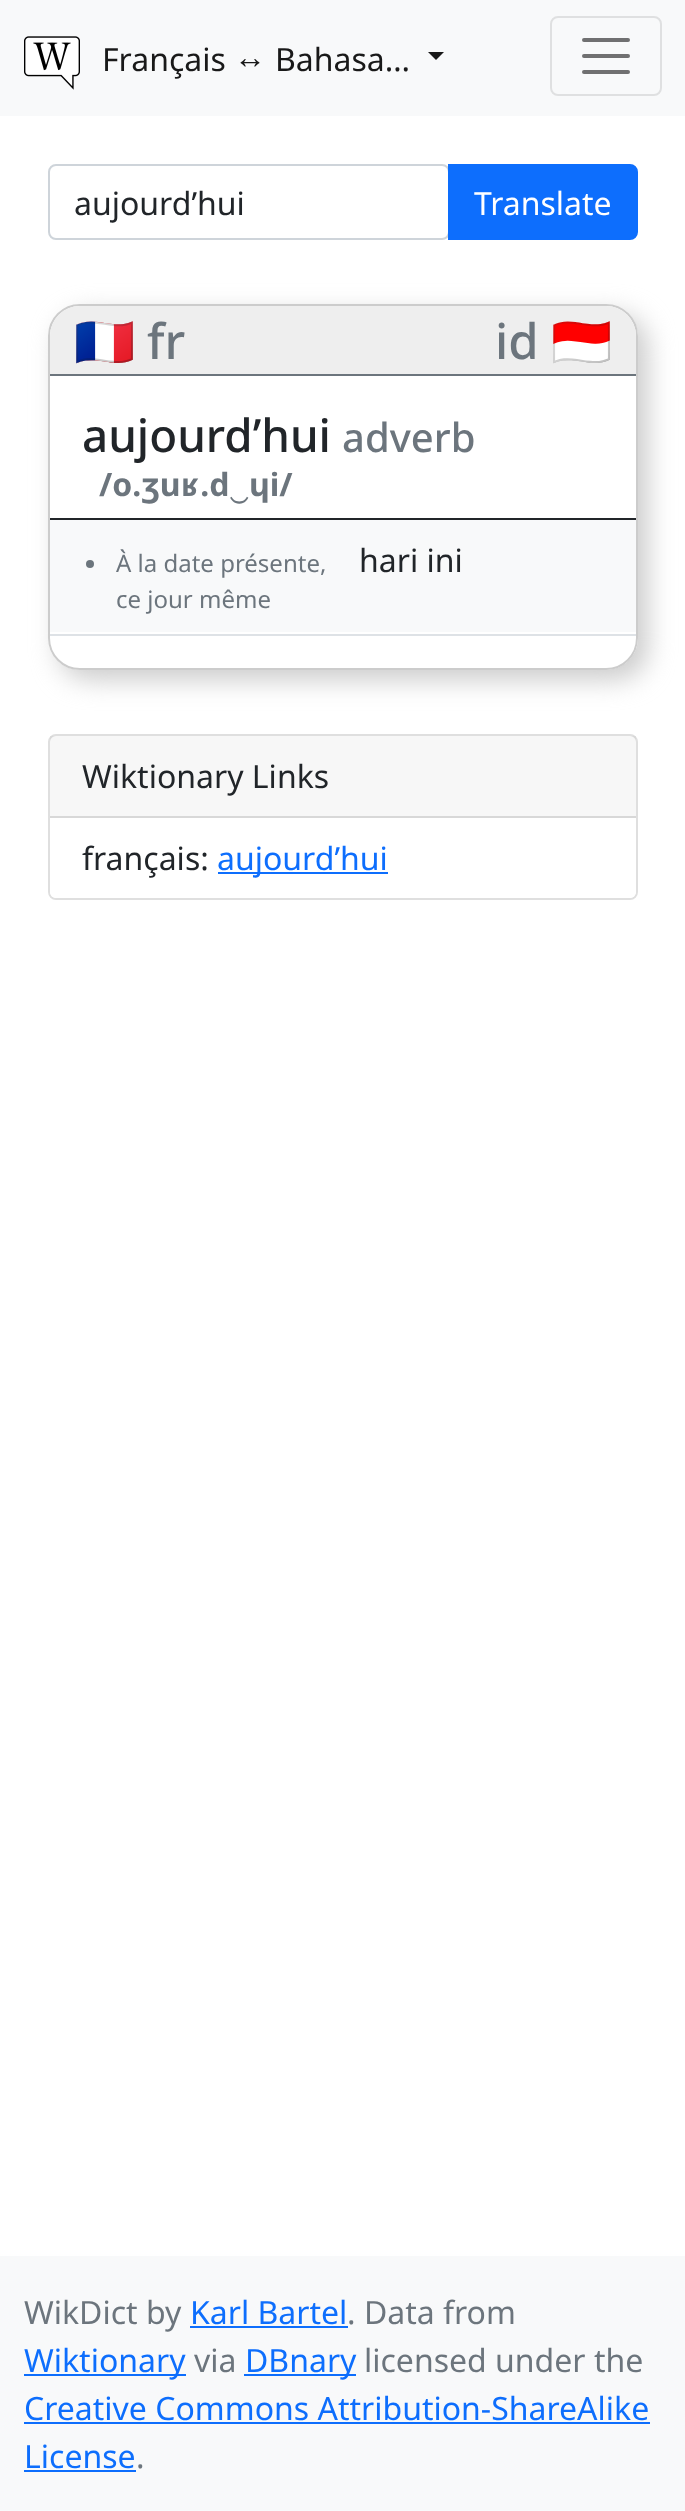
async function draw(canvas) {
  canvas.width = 685
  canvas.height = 2511
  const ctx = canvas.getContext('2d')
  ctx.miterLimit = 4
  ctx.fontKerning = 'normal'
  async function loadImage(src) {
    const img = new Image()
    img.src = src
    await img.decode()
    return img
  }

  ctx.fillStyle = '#fff'
  ctx.fillRect(0, 0, 685, 2511)
  ctx.fillStyle = '#f8f9fa'
  ctx.fillRect(0, 0, 685, 116)
  ctx.drawImage(await loadImage('image0.png'), 24, 36, 56, 54)
  ctx.font = '32px Noto Sans'
  ctx.fillStyle = '#191919'
  ctx.fillText('Français', 102, 71)
  ctx.fillText('Bahasa…', 275, 71)
  ctx.beginPath()
  ctx.moveTo(428, 52)
  ctx.lineTo(444, 52)
  ctx.lineTo(436, 60)
  ctx.closePath()
  ctx.fill()
  ctx.font = '32px Liberation Sans'
  ctx.fillText('↔', 234, 68)
  ctx.beginPath()
  ctx.roundRect(551, 17, 110, 78, 7)
  ctx.strokeStyle = '#dfe0e1'
  ctx.lineWidth = 2
  ctx.stroke()
  ctx.beginPath()
  ctx.moveTo(584, 40)
  ctx.lineTo(628, 40)
  ctx.moveTo(584, 56)
  ctx.lineTo(628, 56)
  ctx.moveTo(584, 72)
  ctx.lineTo(628, 72)
  ctx.strokeStyle = '#707071'
  ctx.lineWidth = 4
  ctx.lineCap = 'round'
  ctx.stroke()
  ctx.beginPath()
  ctx.roundRect(49, 165, 400, 74, 7)
  ctx.strokeStyle = '#ced4da'
  ctx.lineWidth = 2
  ctx.stroke()
  ctx.font = '32px Noto Sans'
  ctx.fillStyle = '#212529'
  ctx.fillText('aujourd’hui', 74, 215)
  ctx.fillStyle = '#0d6efd'
  ctx.beginPath()
  ctx.roundRect(449, 165, 188, 74, [0, 7, 7, 0])
  ctx.fill()
  ctx.strokeStyle = '#0d6efd'
  ctx.stroke()
  ctx.fillStyle = '#fff'
  ctx.fillText('Translate', 474, 215)
  ctx.save()
  ctx.beginPath()
  ctx.moveTo(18, 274)
  ctx.lineTo(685, 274)
  ctx.lineTo(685, 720)
  ctx.lineTo(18, 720)
  ctx.closePath()
  ctx.moveTo(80, 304)
  ctx.lineTo(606, 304)
  ctx.bezierCurveTo(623.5, 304, 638, 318.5, 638, 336)
  ctx.lineTo(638, 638)
  ctx.bezierCurveTo(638, 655.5, 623.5, 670, 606, 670)
  ctx.lineTo(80, 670)
  ctx.bezierCurveTo(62.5, 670, 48, 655.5, 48, 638)
  ctx.lineTo(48, 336)
  ctx.bezierCurveTo(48, 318.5, 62.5, 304, 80, 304)
  ctx.closePath()
  ctx.clip('evenodd')
  ctx.fillStyle = '#ccc'
  ctx.filter = 'blur(13px)'
  ctx.beginPath()
  ctx.roundRect(58, 314, 590, 366, 32)
  ctx.fill()
  ctx.filter = 'none'
  ctx.restore()
  ctx.beginPath()
  ctx.roundRect(49, 305, 588, 364, 31)
  ctx.strokeStyle = '#ccc'
  ctx.stroke()
  ctx.fillStyle = '#eee'
  ctx.beginPath()
  ctx.roundRect(50, 306, 586, 70, [30, 30, 0, 0])
  ctx.fill()
  ctx.fillStyle = '#6c757d'
  ctx.fillRect(50, 374, 586, 2)
  ctx.font = '49px Noto Color Emoji'
  ctx.fillText('🇫🇷', 74, 359)
  ctx.font = '500 49px Noto Sans'
  ctx.fillText('fr', 147, 359)
  ctx.fillText('id', 495, 359)
  ctx.font = '49px Noto Color Emoji'
  ctx.fillText('🇮🇩', 551, 359)
  ctx.fillStyle = '#212529'
  ctx.fillRect(50, 518, 586, 2)
  ctx.font = '500 45.75px Noto Sans'
  ctx.fillText('aujourd’hui', 82, 452)
  ctx.font = '500 40px Noto Sans'
  ctx.fillStyle = '#6c757d'
  ctx.fillText('adverb', 342, 452)
  ctx.font = 'bold 32px Noto Sans'
  ctx.fillText('/o.ʒuʁ.d‿ɥi/', 99, 496)
  ctx.fillStyle = '#f8f9fa'
  ctx.fillRect(50, 520, 586, 112)
  ctx.fillStyle = '#6c757d'
  ctx.beginPath()
  ctx.arc(90, 564, 4, 0, 2 * Math.PI)
  ctx.fill()
  ctx.font = '24px Noto Sans'
  ctx.fillText('À la date présente,', 116, 572)
  ctx.fillText('ce jour même', 116, 608)
  ctx.fillStyle = '#dee2e6'
  ctx.fillRect(50, 634, 586, 2)
  ctx.font = '32px Noto Sans'
  ctx.fillStyle = '#212529'
  ctx.fillText('hari ini', 359, 572)
  ctx.beginPath()
  ctx.roundRect(49, 735, 588, 164, 7)
  ctx.strokeStyle = '#dfdfdf'
  ctx.stroke()
  ctx.fillStyle = '#00000008'
  ctx.fillRect(50, 736, 586, 80)
  ctx.fillStyle = '#d8d8d8'
  ctx.fillRect(50, 816, 586, 2)
  ctx.fillStyle = '#212529'
  ctx.fillText('Wiktionary Links', 82, 788)
  ctx.fillStyle = '#fff'
  ctx.beginPath()
  ctx.roundRect(50, 818, 586, 80, [0, 0, 6, 6])
  ctx.fill()
  ctx.fillStyle = '#212529'
  ctx.fillText('français:', 82, 870)
  ctx.fillStyle = '#0d6efd'
  ctx.fillRect(218, 872, 170, 2)
  ctx.fillText('aujourd’hui', 217, 870)
  ctx.fillStyle = '#f8f9fa'
  ctx.fillRect(0, 2256, 685, 255)
  ctx.fillStyle = '#6c757d'
  ctx.fillText('WikDict by', 24, 2324)
  ctx.fillStyle = '#0d6efd'
  ctx.fillText('Karl Bartel', 190, 2324)
  ctx.fillRect(190, 2326, 158, 2)
  ctx.fillStyle = '#6c757d'
  ctx.fillText('. Data from', 347, 2324)
  ctx.fillStyle = '#0d6efd'
  ctx.fillRect(24, 2374, 162, 2)
  ctx.fillText('Wiktionary', 24, 2372)
  ctx.fillStyle = '#6c757d'
  ctx.fillText('via', 194, 2372)
  ctx.fillStyle = '#0d6efd'
  ctx.fillRect(244, 2374, 112, 2)
  ctx.fillText('DBnary', 245, 2372)
  ctx.fillStyle = '#6c757d'
  ctx.fillText('licensed under the', 364, 2372)
  ctx.fillStyle = '#0d6efd'
  ctx.fillText('Creative Commons Attribution-ShareAlike', 24, 2420)
  ctx.fillRect(24, 2422, 626, 2)
  ctx.fillText('License', 24, 2468)
  ctx.fillRect(24, 2470, 112, 2)
  ctx.fillStyle = '#6c757d'
  ctx.fillText('.', 136, 2468)
}

draw(document.querySelector('canvas'))
